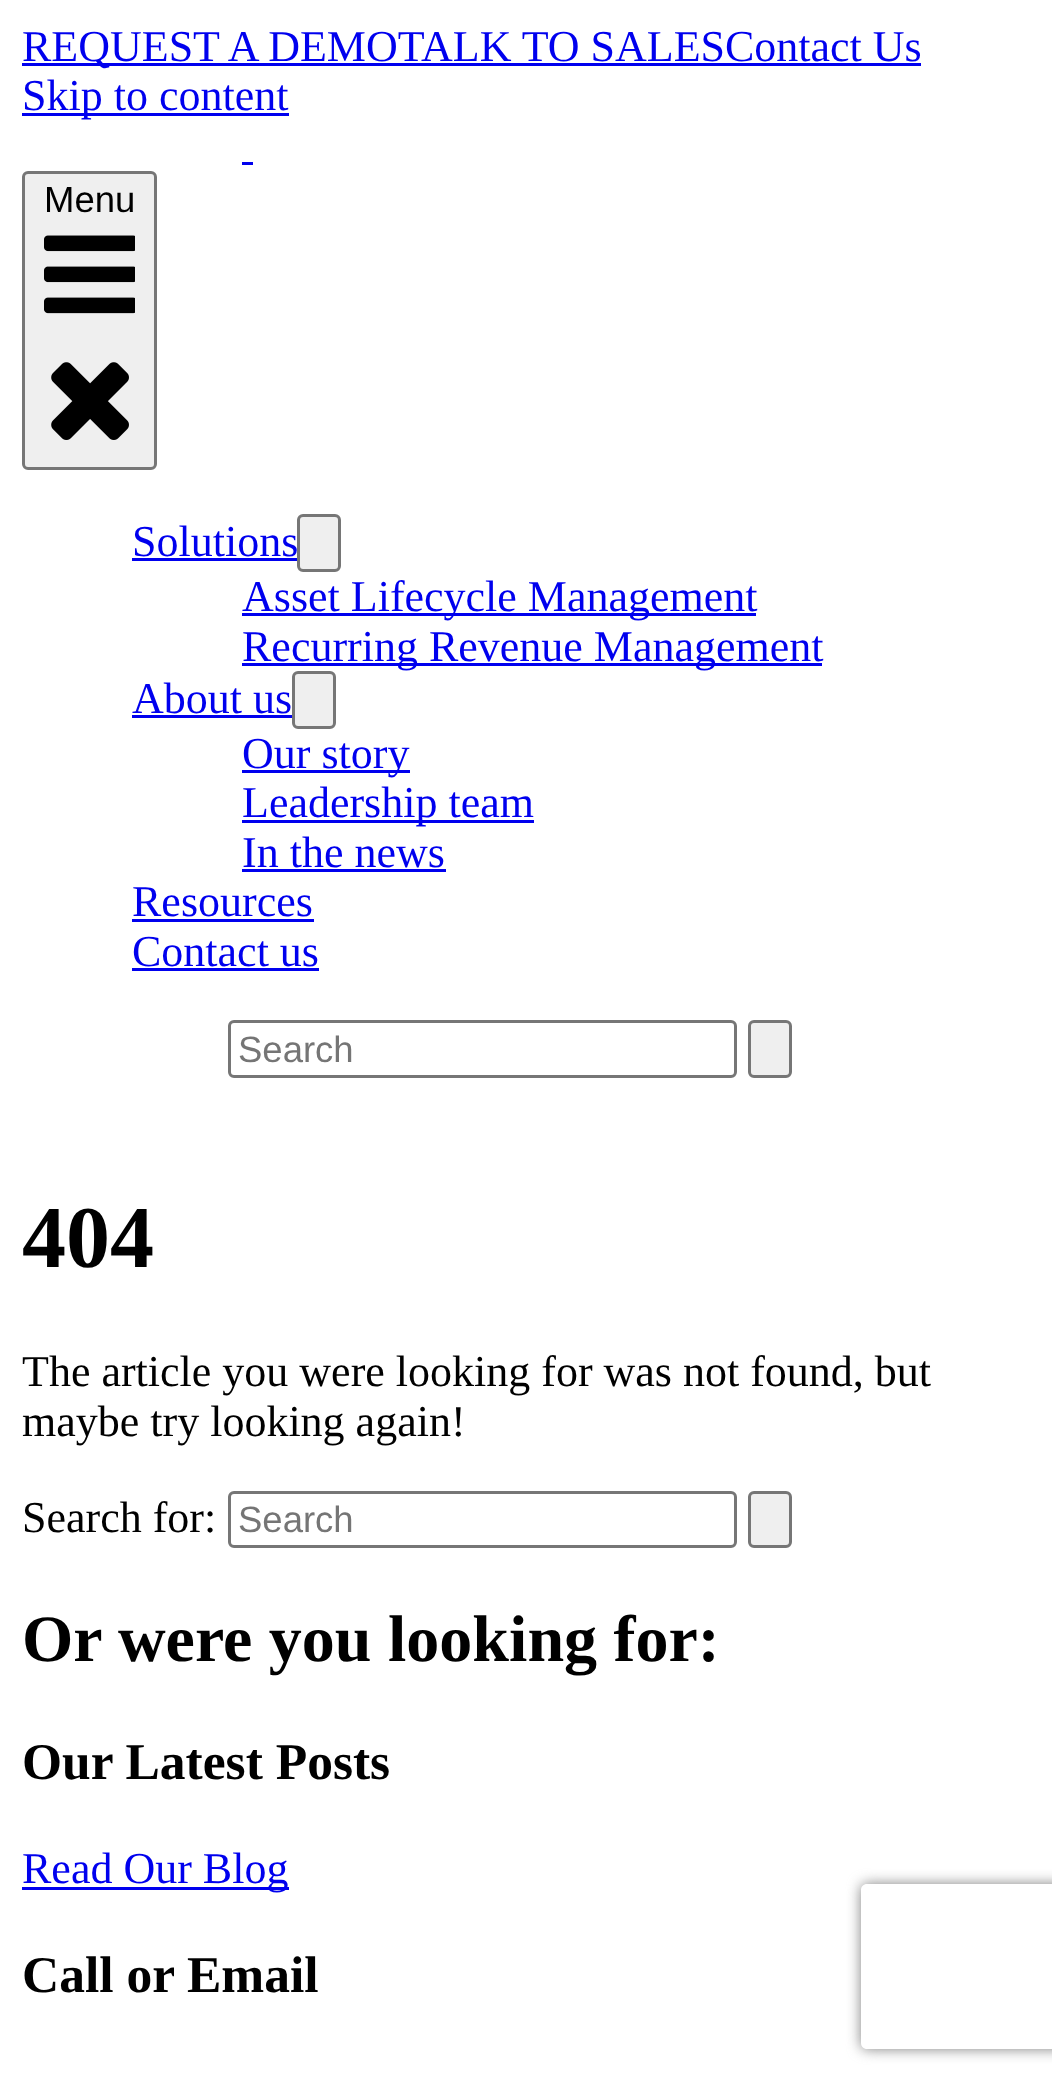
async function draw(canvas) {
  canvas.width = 1052
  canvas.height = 2085
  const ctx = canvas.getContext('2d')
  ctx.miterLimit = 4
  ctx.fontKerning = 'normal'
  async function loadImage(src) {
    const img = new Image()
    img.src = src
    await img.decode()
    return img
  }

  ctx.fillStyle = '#fff'
  ctx.fillRect(0, 0, 1052, 2085)
  ctx.fillStyle = '#00e'
  ctx.fillRect(22, 63, 899, 3)
  ctx.font = '44px Liberation Serif'
  ctx.fillText('REQUEST A DEMOTALK TO SALESContact Us', 22, 61)
  ctx.fillRect(22, 113, 267, 3)
  ctx.fillText('Skip to content', 22, 110)
  ctx.fillRect(242, 162, 11, 3)
  ctx.fillStyle = '#efefef'
  ctx.beginPath()
  ctx.roundRect(23.5, 172.5, 132, 296, 4.5)
  ctx.fill()
  ctx.strokeStyle = '#767676'
  ctx.lineWidth = 3
  ctx.stroke()
  ctx.font = '36.5px Liberation Sans'
  ctx.fillStyle = '#000'
  ctx.fillText('Menu', 44, 212)
  ctx.drawImage(await loadImage('image0.png'), 44, 235, 91, 79)
  ctx.drawImage(await loadImage('image1.png'), 51, 362, 78, 78)
  ctx.font = '44px Liberation Serif'
  ctx.fillStyle = '#00e'
  ctx.fillText('Solutions', 132, 556)
  ctx.fillRect(132, 558, 165, 3)
  ctx.fillStyle = '#efefef'
  ctx.beginPath()
  ctx.roundRect(298.5, 515.5, 41, 55, 4.5)
  ctx.fill()
  ctx.stroke()
  ctx.fillStyle = '#00e'
  ctx.fillRect(242, 613, 514, 3)
  ctx.fillText('Asset Lifecycle Management', 242, 611)
  ctx.fillRect(242, 663, 580, 3)
  ctx.fillText('Recurring Revenue Management', 242, 661)
  ctx.fillText('About us', 132, 713)
  ctx.fillRect(132, 715, 160, 3)
  ctx.fillStyle = '#efefef'
  ctx.beginPath()
  ctx.roundRect(293.5, 672.5, 41, 55, 4.5)
  ctx.fill()
  ctx.stroke()
  ctx.fillStyle = '#00e'
  ctx.fillRect(242, 770, 168, 3)
  ctx.fillText('Our story', 242, 768)
  ctx.fillRect(242, 820, 292, 3)
  ctx.fillText('Leadership team', 242, 817)
  ctx.fillText('In the news', 242, 867)
  ctx.fillRect(242, 869, 204, 3)
  ctx.fillText('Resources', 132, 916)
  ctx.fillRect(132, 919, 182, 3)
  ctx.fillText('Contact us', 132, 966)
  ctx.fillRect(132, 968, 187, 3)
  ctx.beginPath()
  ctx.roundRect(229.5, 1021.5, 506, 55, 4.5)
  ctx.stroke()
  ctx.font = '36.5px Liberation Sans'
  ctx.fillStyle = '#757575'
  ctx.fillText('Search', 238, 1062)
  ctx.fillStyle = '#efefef'
  ctx.beginPath()
  ctx.roundRect(749.5, 1021.5, 41, 55, 4.5)
  ctx.fill()
  ctx.stroke()
  ctx.font = 'bold 88px Liberation Serif'
  ctx.fillStyle = '#000'
  ctx.fillText('404', 22, 1267)
  ctx.font = '44px Liberation Serif'
  ctx.fillText('The article you were looking for was not found, but', 22, 1386)
  ctx.fillText('maybe try looking again!', 22, 1436)
  ctx.fillText('Search for:', 22, 1532)
  ctx.beginPath()
  ctx.roundRect(229.5, 1492.5, 506, 54, 4.5)
  ctx.stroke()
  ctx.font = '36.5px Liberation Sans'
  ctx.fillStyle = '#757575'
  ctx.fillText('Search', 238, 1532)
  ctx.fillStyle = '#efefef'
  ctx.beginPath()
  ctx.roundRect(749.5, 1492.5, 41, 54, 4.5)
  ctx.fill()
  ctx.stroke()
  ctx.font = 'bold 66px Liberation Serif'
  ctx.fillStyle = '#000'
  ctx.fillText('Or were you looking for:', 22, 1661)
  ctx.font = 'bold 51.5px Liberation Serif'
  ctx.fillText('Our Latest Posts', 22, 1779)
  ctx.fillStyle = '#00e'
  ctx.fillRect(22, 1887, 267, 3)
  ctx.font = '44px Liberation Serif'
  ctx.fillText('Read Our Blog', 22, 1883)
  ctx.font = 'bold 51.5px Liberation Serif'
  ctx.fillStyle = '#000'
  ctx.fillText('Call or Email', 22, 1992)
  ctx.save()
  ctx.beginPath()
  ctx.moveTo(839, 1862)
  ctx.lineTo(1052, 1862)
  ctx.lineTo(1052, 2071)
  ctx.lineTo(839, 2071)
  ctx.closePath()
  ctx.moveTo(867, 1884)
  ctx.lineTo(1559, 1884)
  ctx.bezierCurveTo(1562.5, 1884, 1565, 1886.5, 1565, 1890)
  ctx.lineTo(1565, 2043)
  ctx.bezierCurveTo(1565, 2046.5, 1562.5, 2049, 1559, 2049)
  ctx.lineTo(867, 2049)
  ctx.bezierCurveTo(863.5, 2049, 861, 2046.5, 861, 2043)
  ctx.lineTo(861, 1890)
  ctx.bezierCurveTo(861, 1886.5, 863.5, 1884, 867, 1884)
  ctx.closePath()
  ctx.clip('evenodd')
  ctx.fillStyle = '#808080'
  ctx.filter = 'blur(7px)'
  ctx.beginPath()
  ctx.roundRect(861, 1884, 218, 165, 6)
  ctx.fill()
  ctx.filter = 'none'
  ctx.restore()
}

draw(document.querySelector('canvas'))
